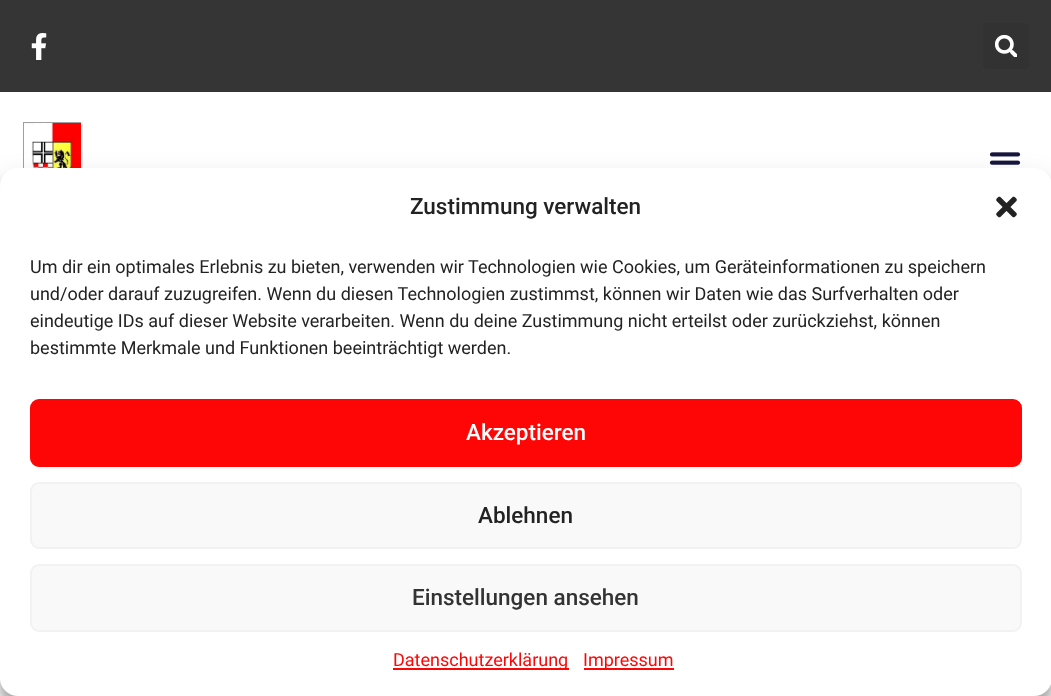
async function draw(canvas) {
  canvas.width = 1051
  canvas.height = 696
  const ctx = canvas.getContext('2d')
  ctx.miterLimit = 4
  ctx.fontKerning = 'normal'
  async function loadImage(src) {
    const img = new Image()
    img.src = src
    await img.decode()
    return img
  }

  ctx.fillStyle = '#fff'
  ctx.fillRect(0, 0, 1051, 696)
  ctx.fillStyle = '#353535'
  ctx.fillRect(0, 0, 1051, 92)
  ctx.drawImage(await loadImage('image0.png'), 31, 33, 16, 27)
  ctx.fillStyle = '#323232'
  ctx.beginPath()
  ctx.roundRect(983, 23, 46, 46, 5)
  ctx.fill()
  ctx.drawImage(await loadImage('image1.png'), 995, 35, 22, 22)
  ctx.fillStyle = '#9f9f9f'
  ctx.fillRect(23, 122, 60, 1)
  ctx.fillStyle = '#eee'
  ctx.fillRect(81, 122, 2, 46)
  ctx.fillStyle = '#9f9f9f'
  ctx.fillRect(23, 122, 2, 46)
  ctx.drawImage(await loadImage('image2.png'), 24, 123, 57, 45)
  ctx.drawImage(await loadImage('image3.png'), 989, 152, 32, 13)
  ctx.fillStyle = '#0000003b'
  ctx.filter = 'blur(4.5px)'
  ctx.beginPath()
  ctx.roundRect(0, 177, 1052, 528, 18)
  ctx.fill()
  ctx.filter = 'none'
  ctx.fillStyle = '#00000030'
  ctx.filter = 'blur(15px)'
  ctx.beginPath()
  ctx.roundRect(0, 183, 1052, 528, 18)
  ctx.fill()
  ctx.filter = 'none'
  ctx.fillStyle = '#fff'
  ctx.beginPath()
  ctx.roundRect(0, 168, 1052, 528, 18)
  ctx.fill()
  ctx.font = '500 22.5px Roboto'
  ctx.fillStyle = '#222'
  ctx.fillText('Zustimmung verwalten', 410, 214)
  ctx.drawImage(await loadImage('image4.png'), 996, 196, 21, 22)
  ctx.font = '18px Roboto'
  ctx.fillText('Um dir ein optimales Erlebnis zu bieten, verwenden wir Technologien wie Cookies, um Geräteinformationen zu speichern', 30, 273)
  ctx.fillText('und/oder darauf zuzugreifen. Wenn du diesen Technologien zustimmst, können wir Daten wie das Surfverhalten oder', 30, 300)
  ctx.fillText('eindeutige IDs auf dieser Website verarbeiten. Wenn du deine Zustimmung nicht erteilst oder zurückziehst, können', 30, 327)
  ctx.fillText('bestimmte Merkmale und Funktionen beeinträchtigt werden.', 30, 354)
  ctx.fillStyle = '#fe0606'
  ctx.beginPath()
  ctx.roundRect(31, 400, 990, 66, 8)
  ctx.fill()
  ctx.strokeStyle = '#fe0606'
  ctx.lineWidth = 2
  ctx.stroke()
  ctx.font = '500 22.5px Roboto'
  ctx.fillStyle = '#fff'
  ctx.fillText('Akzeptieren', 466, 440)
  ctx.fillStyle = '#f9f9f9'
  ctx.beginPath()
  ctx.roundRect(31, 483, 990, 65, 8)
  ctx.fill()
  ctx.strokeStyle = '#f2f2f2'
  ctx.stroke()
  ctx.fillStyle = '#222'
  ctx.fillText('Ablehnen', 478, 523)
  ctx.fillStyle = '#f9f9f9'
  ctx.beginPath()
  ctx.roundRect(31, 565, 990, 66, 8)
  ctx.fill()
  ctx.stroke()
  ctx.fillStyle = '#333'
  ctx.fillText('Einstellungen ansehen', 412, 605)
  ctx.fillStyle = '#fe0606'
  ctx.fillRect(393, 668, 176, 2)
  ctx.font = '18px Roboto'
  ctx.fillText('Datenschutzerklärung', 393, 666)
  ctx.fillRect(584, 668, 90, 2)
  ctx.fillText('Impressum', 583, 666)
}

draw(document.querySelector('canvas'))
